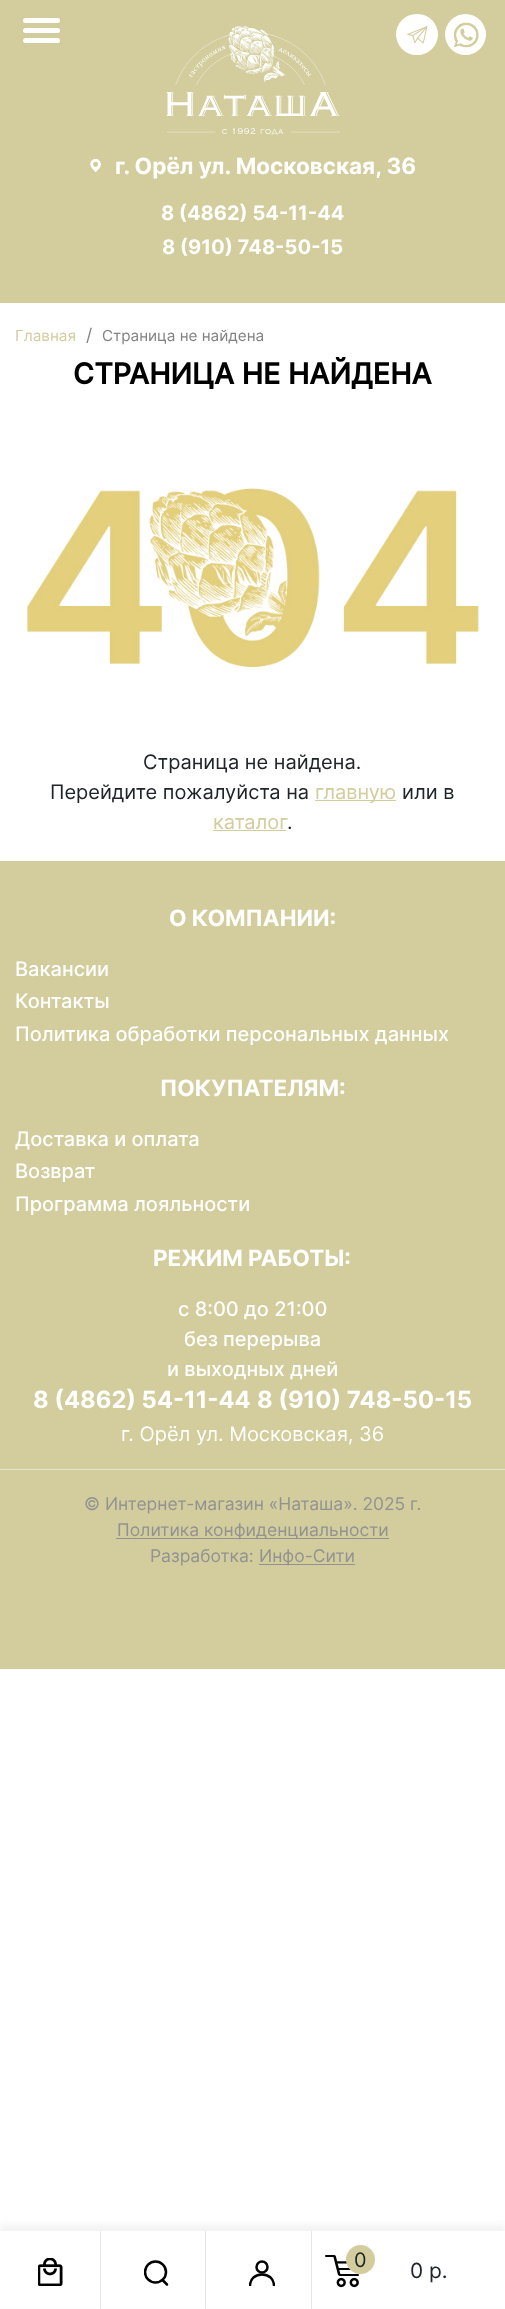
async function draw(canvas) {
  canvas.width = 505
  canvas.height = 2309
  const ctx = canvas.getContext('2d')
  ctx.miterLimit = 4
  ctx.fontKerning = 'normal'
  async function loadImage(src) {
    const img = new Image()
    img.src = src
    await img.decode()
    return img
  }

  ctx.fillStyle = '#fff'
  ctx.fillRect(0, 0, 505, 2309)
  ctx.fillStyle = '#d3cc9c'
  ctx.fillRect(0, 0, 505, 303)
  ctx.drawImage(await loadImage('image0.png'), 166, 26, 174, 109)
  ctx.fillStyle = '#fff'
  ctx.beginPath()
  ctx.roundRect(23, 18, 37, 5, 2.5)
  ctx.fill()
  ctx.beginPath()
  ctx.roundRect(23, 28, 37, 5, 2.5)
  ctx.fill()
  ctx.beginPath()
  ctx.roundRect(23, 38, 37, 5, 2.5)
  ctx.fill()
  ctx.beginPath()
  ctx.roundRect(396, 14, 42, 41, 20.5)
  ctx.fill()
  ctx.drawImage(await loadImage('image1.png'), 407, 26, 21, 18)
  ctx.beginPath()
  ctx.arc(465.5, 34.5, 20.5, 0, 2 * Math.PI)
  ctx.fill()
  ctx.drawImage(await loadImage('image2.png'), 453, 22, 26, 26)
  ctx.drawImage(await loadImage('image3.png'), 90, 159, 11, 14)
  ctx.font = 'bold 22.5px Inter'
  ctx.fillText('г. Орёл ул. Московская, 36', 115, 174)
  ctx.font = 'bold 20px Inter'
  ctx.fillText('8 (4862) 54-11-44', 161, 220)
  ctx.fillText('8 (910) 748-50-15', 162, 254)
  ctx.font = '15.25px Inter'
  ctx.fillStyle = '#d3cc9c'
  ctx.fillText('Главная', 15, 341)
  ctx.font = '17.5px Inter'
  ctx.fillStyle = '#828282'
  ctx.fillText('/', 86, 341)
  ctx.font = '15.25px Inter'
  ctx.fillText('Страница не найдена', 102, 341)
  ctx.font = 'bold 28.75px "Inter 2"'
  ctx.fillStyle = '#000'
  ctx.fillText('СТРАНИЦА НЕ НАЙДЕНА', 73, 384)
  ctx.drawImage(await loadImage('image4.png'), 27, 488, 452, 179)
  ctx.font = '20px Inter'
  ctx.fillStyle = '#212529'
  ctx.fillText('Страница не найдена.', 143, 769)
  ctx.fillText('Перейдите пожалуйста на', 50, 799)
  ctx.fillStyle = '#d3cc9c'
  ctx.fillRect(315, 800, 81, 1)
  ctx.fillText('главную', 315, 799)
  ctx.fillStyle = '#212529'
  ctx.fillText('или в', 402, 799)
  ctx.fillStyle = '#d3cc9c'
  ctx.fillText('каталог', 213, 829)
  ctx.fillRect(213, 830, 73, 1)
  ctx.fillStyle = '#212529'
  ctx.fillText('.', 287, 829)
  ctx.fillStyle = '#d3cc9c'
  ctx.fillRect(0, 861, 505, 808)
  ctx.fillStyle = '#e9e6ce'
  ctx.fillRect(0, 1469, 505, 1)
  ctx.font = 'bold 22.5px Inter'
  ctx.fillStyle = '#fff'
  ctx.fillText('О КОМПАНИИ:', 169, 926)
  ctx.font = '500 20px Inter'
  ctx.fillText('Вакансии', 15, 976)
  ctx.fillText('Контакты', 15, 1008)
  ctx.fillText('Политика обработки персональных данных', 15, 1041)
  ctx.font = 'bold 22.5px Inter'
  ctx.fillText('ПОКУПАТЕЛЯМ:', 160, 1096)
  ctx.font = '500 20px Inter'
  ctx.fillText('Доставка и оплата', 15, 1146)
  ctx.fillText('Возврат', 15, 1178)
  ctx.fillText('Программа лояльности', 15, 1211)
  ctx.font = 'bold 22.5px Inter'
  ctx.fillText('РЕЖИМ РАБОТЫ:', 153, 1266)
  ctx.font = '500 20px Inter'
  ctx.fillText('с 8:00 до 21:00', 178, 1316)
  ctx.fillText('без перерыва', 184, 1346)
  ctx.fillText('и выходных дней', 167, 1376)
  ctx.font = 'bold 23.75px Inter'
  ctx.fillText('8 (4862) 54-11-44', 33, 1408)
  ctx.fillText('8 (910) 748-50-15', 257, 1408)
  ctx.font = '20px Inter'
  ctx.fillText('г. Орёл ул. Московская, 36', 121, 1441)
  ctx.font = '17.5px Inter'
  ctx.fillStyle = '#929292'
  ctx.fillText('© Интернет-магазин «Наташа». 2025 г.', 84, 1510)
  ctx.fillRect(116, 1538, 273, 1)
  ctx.fillText('Политика конфиденциальности', 117, 1536)
  ctx.fillText('Разработка:', 150, 1562)
  ctx.fillRect(259, 1564, 96, 1)
  ctx.fillText('Инфо-Сити', 259, 1562)
  ctx.fillStyle = '#0000000d'
  ctx.filter = 'blur(3px)'
  ctx.beginPath()
  ctx.rect(0, 2225, 505, 79)
  ctx.fill()
  ctx.filter = 'none'
  ctx.fillStyle = '#fff'
  ctx.fillRect(0, 2231, 505, 76)
  ctx.fillStyle = '#e6e6e6'
  ctx.fillRect(100, 2231, 1, 78)
  ctx.drawImage(await loadImage('image5.png'), 38, 2258, 25, 28)
  ctx.fillRect(205, 2231, 1, 78)
  ctx.save()
  ctx.beginPath()
  ctx.rect(144, 2260, 25, 26)
  ctx.clip()
  ctx.beginPath()
  ctx.arc(155.5, 2272, 10.5, 0, 2 * Math.PI)
  ctx.strokeStyle = '#000'
  ctx.lineWidth = 2.5
  ctx.stroke()
  ctx.restore()
  ctx.beginPath()
  ctx.moveTo(162.5, 2280)
  ctx.lineTo(167, 2284.5)
  ctx.strokeStyle = '#000'
  ctx.lineWidth = 2.5
  ctx.lineCap = 'round'
  ctx.lineJoin = 'round'
  ctx.stroke()
  ctx.fillRect(311, 2231, 1, 78)
  ctx.beginPath()
  ctx.arc(262, 2267, 5.5, 0, 2 * Math.PI)
  ctx.stroke()
  ctx.save()
  ctx.beginPath()
  ctx.rect(249, 2260, 26, 26)
  ctx.clip()
  ctx.beginPath()
  ctx.moveTo(274, 2286)
  ctx.bezierCurveTo(274, 2270.5, 250, 2270.5, 250, 2286)
  ctx.lineCap = 'butt'
  ctx.lineJoin = 'miter'
  ctx.stroke()
  ctx.restore()
  ctx.drawImage(await loadImage('image6.png'), 325, 2255, 34, 33)
  ctx.fillStyle = '#d3cc9c'
  ctx.beginPath()
  ctx.arc(360.5, 2259.5, 14.5, 0, 2 * Math.PI)
  ctx.fill()
  ctx.font = '20px Inter'
  ctx.fillStyle = '#212529'
  ctx.fillText('0', 354, 2267)
  ctx.font = '21px Inter'
  ctx.fillText('0 р.', 410, 2278)
}

draw(document.querySelector('canvas'))
